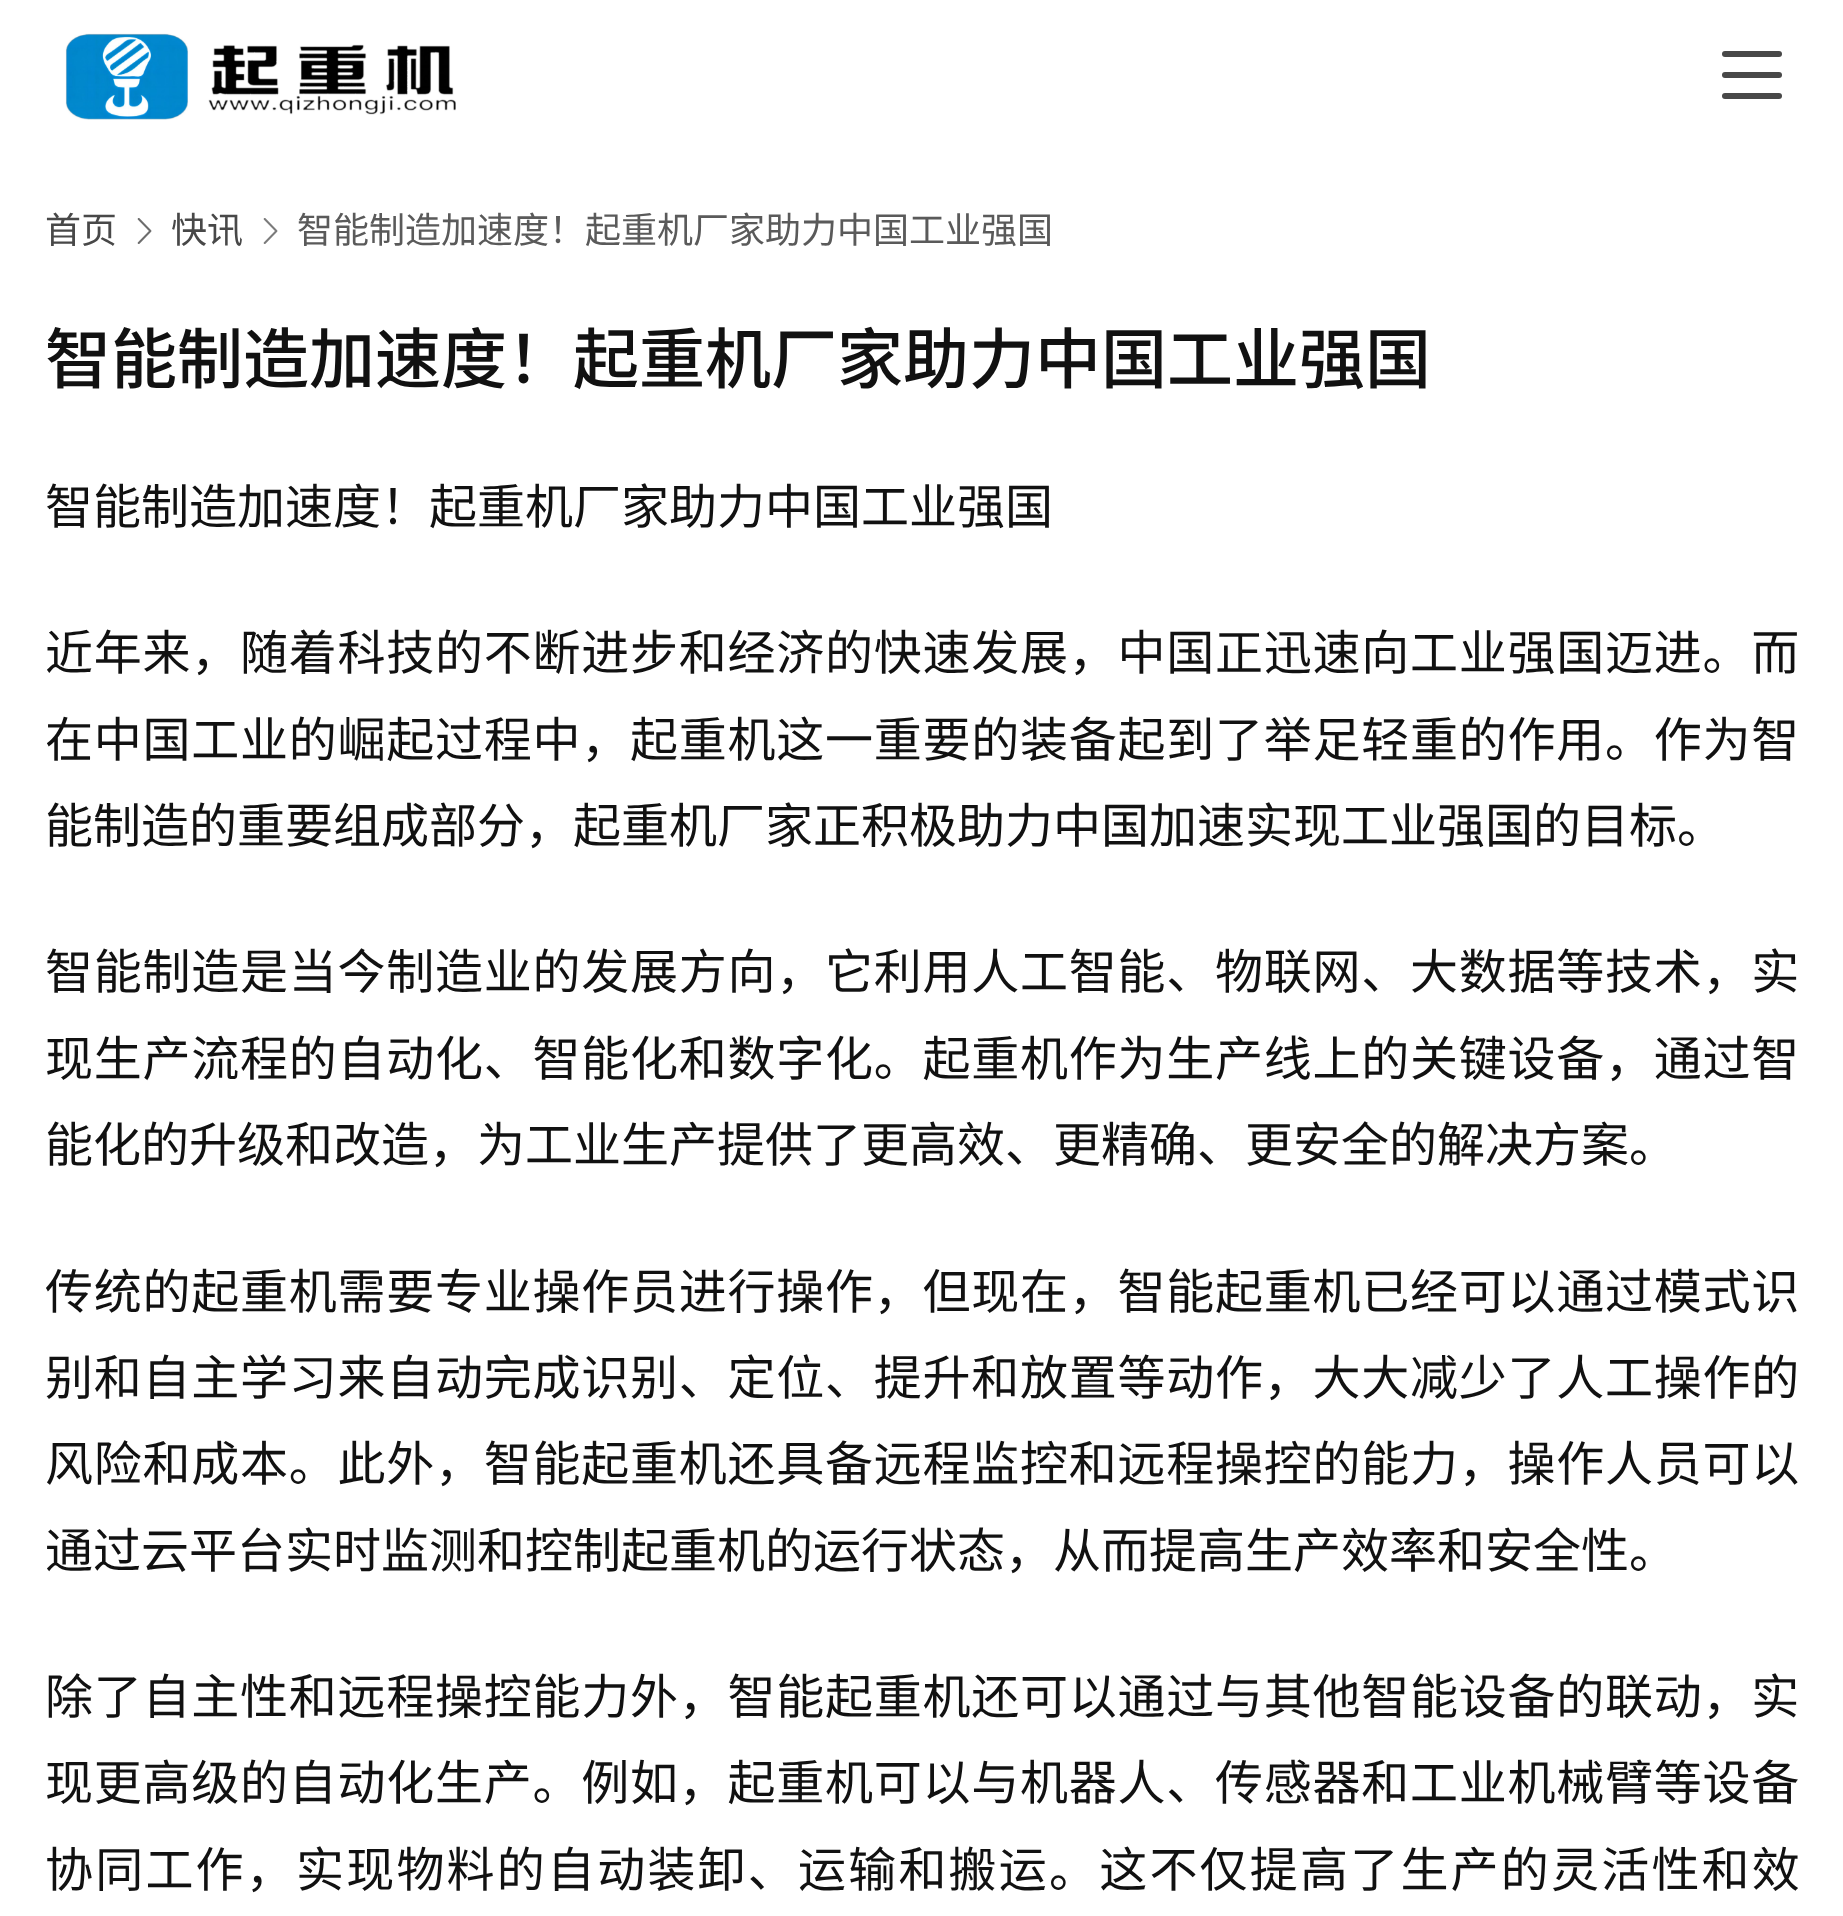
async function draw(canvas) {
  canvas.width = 1843
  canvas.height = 1916
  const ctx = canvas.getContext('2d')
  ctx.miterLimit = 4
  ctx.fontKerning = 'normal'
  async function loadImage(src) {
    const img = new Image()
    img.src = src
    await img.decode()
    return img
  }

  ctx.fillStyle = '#fff'
  ctx.fillRect(0, 0, 1843, 1916)
  ctx.drawImage(await loadImage('image0.png'), 65, 33, 391, 87)
  ctx.fillStyle = '#484848'
  ctx.beginPath()
  ctx.roundRect(1722, 51, 60, 6, 3)
  ctx.fill()
  ctx.beginPath()
  ctx.roundRect(1722, 72, 60, 6, 3)
  ctx.fill()
  ctx.beginPath()
  ctx.roundRect(1722, 93, 60, 6, 3)
  ctx.fill()
  ctx.font = '36px Noto Sans CJK SC'
  ctx.fillText('首页', 45, 243)
  ctx.drawImage(await loadImage('image1.png'), 137, 218, 15, 26)
  ctx.fillText('快讯', 171, 243)
  ctx.drawImage(await loadImage('image2.png'), 263, 218, 15, 26)
  ctx.fillStyle = '#5a5a5a'
  ctx.fillText('智能制造加速度！起重机厂家助力中国工业强国', 297, 243)
  ctx.font = '500 66px Noto Sans CJK SC'
  ctx.fillStyle = '#111'
  ctx.fillText('智能制造加速度！起重机厂家助力中国工业强国', 45, 383)
  ctx.font = '48px Noto Sans CJK SC'
  ctx.fillText('智能制造加速度！起重机厂家助力中国工业强国', 45, 524)
  ctx.letterSpacing = '0.75px'
  ctx.fillText('近年来，随着科技的不断进步和经济的快速发展，中国正迅速向工业强国迈进。而', 45, 670)
  ctx.fillText('在中国工业的崛起过程中，起重机这一重要的装备起到了举足轻重的作用。作为智', 45, 757)
  ctx.letterSpacing = '0px'
  ctx.fillText('能制造的重要组成部分，起重机厂家正积极助力中国加速实现工业强国的目标。', 45, 843)
  ctx.letterSpacing = '0.75px'
  ctx.fillText('智能制造是当今制造业的发展方向，它利用人工智能、物联网、大数据等技术，实', 45, 989)
  ctx.fillText('现生产流程的自动化、智能化和数字化。起重机作为生产线上的关键设备，通过智', 45, 1076)
  ctx.letterSpacing = '0px'
  ctx.fillText('能化的升级和改造，为工业生产提供了更高效、更精确、更安全的解决方案。', 45, 1162)
  ctx.letterSpacing = '0.75px'
  ctx.fillText('传统的起重机需要专业操作员进行操作，但现在，智能起重机已经可以通过模式识', 45, 1309)
  ctx.fillText('别和自主学习来自动完成识别、定位、提升和放置等动作，大大减少了人工操作的', 45, 1395)
  ctx.fillText('风险和成本。此外，智能起重机还具备远程监控和远程操控的能力，操作人员可以', 45, 1481)
  ctx.letterSpacing = '0px'
  ctx.fillText('通过云平台实时监测和控制起重机的运行状态，从而提高生产效率和安全性。', 45, 1568)
  ctx.letterSpacing = '0.75px'
  ctx.fillText('除了自主性和远程操控能力外，智能起重机还可以通过与其他智能设备的联动，实', 45, 1714)
  ctx.fillText('现更高级的自动化生产。例如，起重机可以与机器人、传感器和工业机械臂等设备', 45, 1800)
  ctx.letterSpacing = '2.2px'
  ctx.fillText('协同工作，实现物料的自动装卸、运输和搬运。这不仅提高了生产的灵活性和效', 45, 1887)
}

draw(document.querySelector('canvas'))
